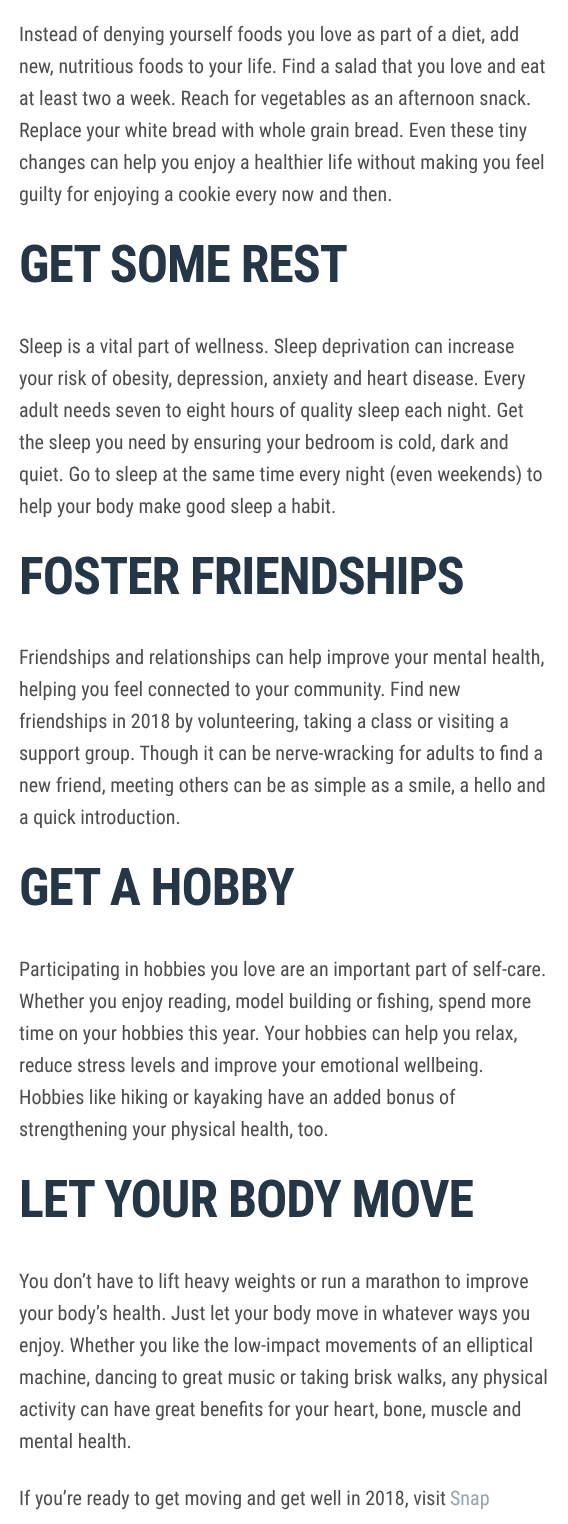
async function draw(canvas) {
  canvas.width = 568
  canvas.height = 1524
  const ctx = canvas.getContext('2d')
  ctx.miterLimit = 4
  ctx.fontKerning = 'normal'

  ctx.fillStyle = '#fff'
  ctx.fillRect(0, 0, 568, 1524)
  ctx.font = '20px Roboto Condensed'
  ctx.fillStyle = '#4d4d4d'
  ctx.fillText('Instead of denying yourself foods you love as part of a diet, add', 19, 41)
  ctx.fillText('new, nutritious foods to your life. Find a salad that you love and eat', 19, 73)
  ctx.fillText('at least two a week. Reach for vegetables as an afternoon snack.', 19, 105)
  ctx.fillText('Replace your white bread with whole grain bread. Even these tiny', 19, 137)
  ctx.fillText('changes can help you enjoy a healthier life without making you feel', 19, 169)
  ctx.fillText('guilty for enjoying a cookie every now and then.', 19, 201)
  ctx.letterSpacing = '-1.1px'
  ctx.font = 'bold 52px Roboto Condensed'
  ctx.fillStyle = '#253746'
  ctx.fillText('GET SOME REST', 19, 282)
  ctx.letterSpacing = '0px'
  ctx.font = '20px Roboto Condensed'
  ctx.fillStyle = '#4d4d4d'
  ctx.fillText('Sleep is a vital part of wellness. Sleep deprivation can increase', 19, 353)
  ctx.fillText('your risk of obesity, depression, anxiety and heart disease. Every', 19, 385)
  ctx.fillText('adult needs seven to eight hours of quality sleep each night. Get', 19, 417)
  ctx.fillText('the sleep you need by ensuring your bedroom is cold, dark and', 19, 449)
  ctx.fillText('quiet. Go to sleep at the same time every night (even weekends) to', 19, 481)
  ctx.fillText('help your body make good sleep a habit.', 19, 513)
  ctx.letterSpacing = '-1.1px'
  ctx.font = 'bold 52px Roboto Condensed'
  ctx.fillStyle = '#253746'
  ctx.fillText('FOSTER FRIENDSHIPS', 19, 594)
  ctx.letterSpacing = '0px'
  ctx.font = '20px Roboto Condensed'
  ctx.fillStyle = '#4d4d4d'
  ctx.fillText('Friendships and relationships can help improve your mental health,', 19, 664)
  ctx.fillText('helping you feel connected to your community. Find new', 19, 696)
  ctx.fillText('friendships in 2018 by volunteering, taking a class or visiting a', 19, 728)
  ctx.fillText('support group. Though it can be nerve-wracking for adults to find a', 19, 760)
  ctx.fillText('new friend, meeting others can be as simple as a smile, a hello and', 19, 792)
  ctx.fillText('a quick introduction.', 19, 824)
  ctx.letterSpacing = '-1.1px'
  ctx.font = 'bold 52px Roboto Condensed'
  ctx.fillStyle = '#253746'
  ctx.fillText('GET A HOBBY', 19, 905)
  ctx.letterSpacing = '0px'
  ctx.font = '20px Roboto Condensed'
  ctx.fillStyle = '#4d4d4d'
  ctx.fillText('Participating in hobbies you love are an important part of self-care.', 19, 976)
  ctx.fillText('Whether you enjoy reading, model building or fishing, spend more', 19, 1008)
  ctx.fillText('time on your hobbies this year. Your hobbies can help you relax,', 19, 1040)
  ctx.fillText('reduce stress levels and improve your emotional wellbeing.', 19, 1072)
  ctx.fillText('Hobbies like hiking or kayaking have an added bonus of', 19, 1104)
  ctx.fillText('strengthening your physical health, too.', 19, 1136)
  ctx.letterSpacing = '-1.1px'
  ctx.font = 'bold 52px Roboto Condensed'
  ctx.fillStyle = '#253746'
  ctx.fillText('LET YOUR BODY MOVE', 19, 1217)
  ctx.letterSpacing = '0px'
  ctx.font = '20px Roboto Condensed'
  ctx.fillStyle = '#4d4d4d'
  ctx.fillText('You don’t have to lift heavy weights or run a marathon to improve', 19, 1288)
  ctx.fillText('your body’s health. Just let your body move in whatever ways you', 19, 1320)
  ctx.fillText('enjoy. Whether you like the low-impact movements of an elliptical', 19, 1352)
  ctx.fillText('machine, dancing to great music or taking brisk walks, any physical', 19, 1384)
  ctx.fillText('activity can have great benefits for your heart, bone, muscle and', 19, 1416)
  ctx.fillText('mental health.', 19, 1448)
  ctx.fillText('If you’re ready to get moving and get well in 2018, visit', 19, 1505)
  ctx.fillStyle = '#98a4ae'
  ctx.fillText('Snap', 450, 1505)
}

draw(document.querySelector('canvas'))
